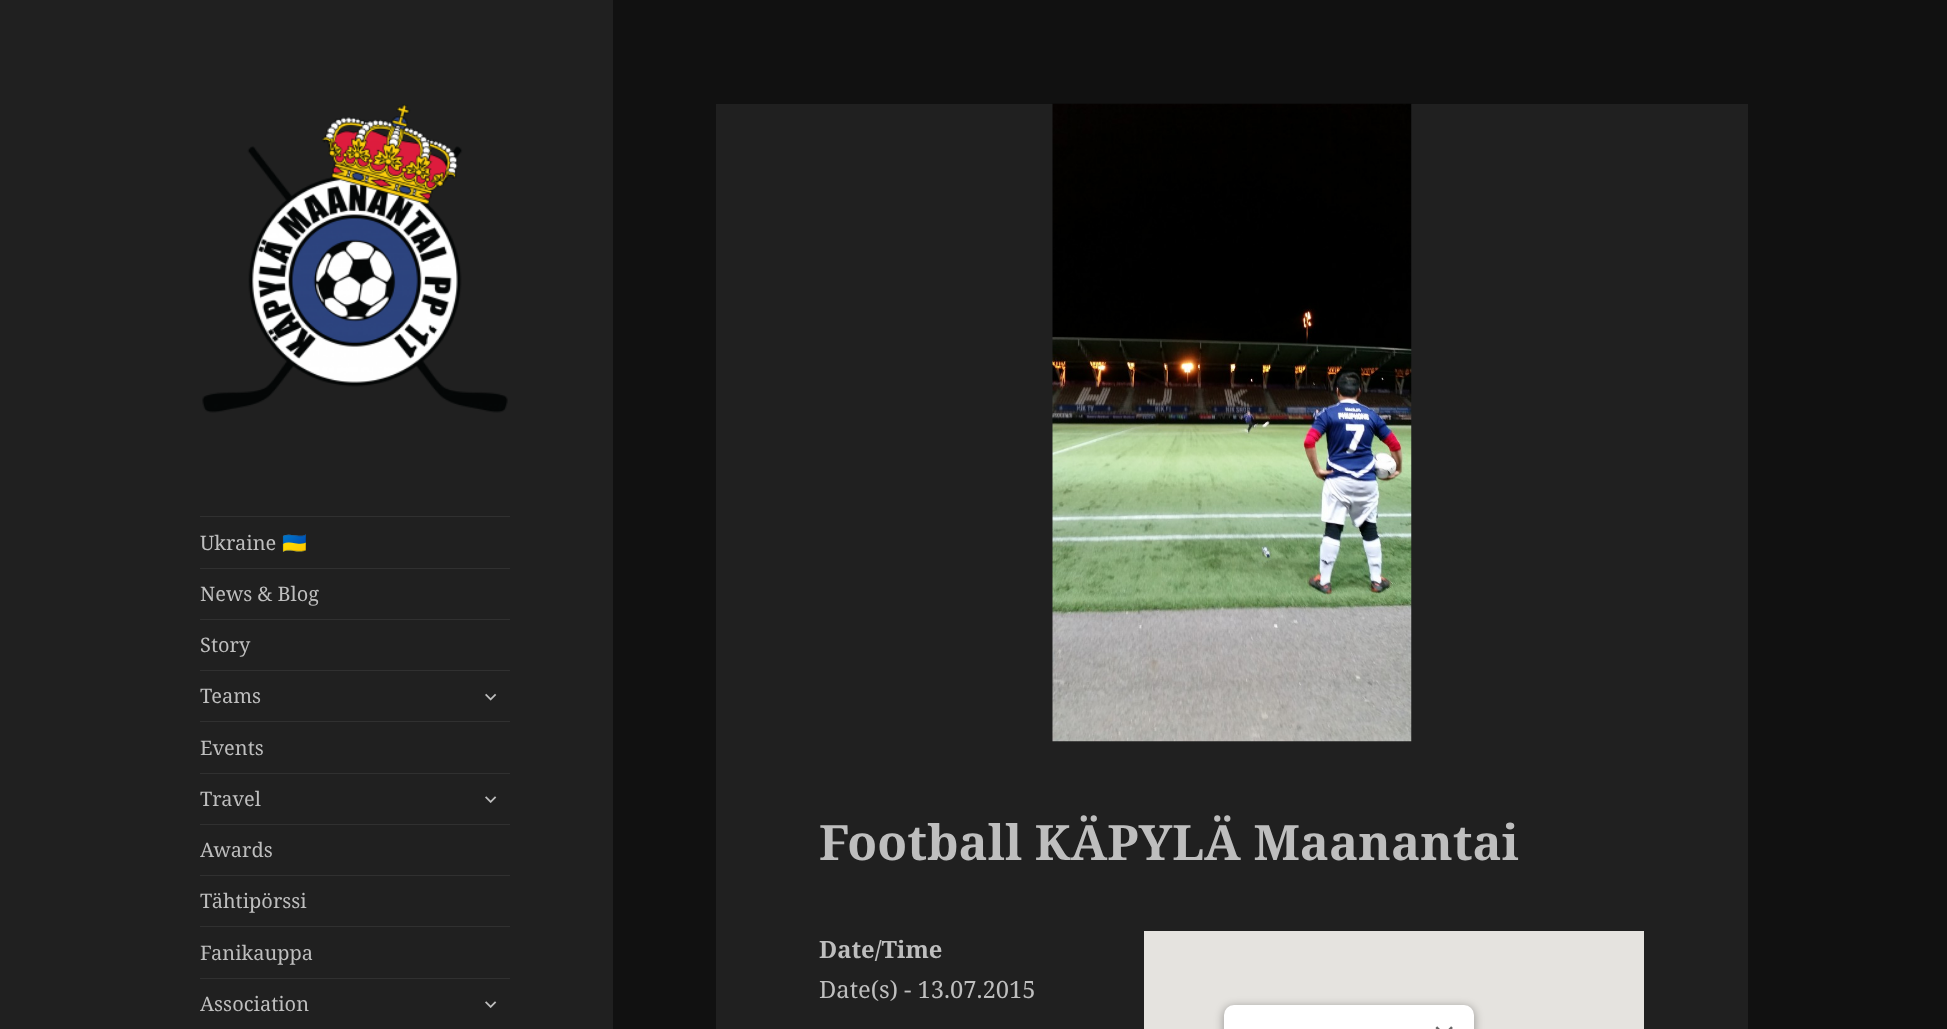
async function draw(canvas) {
  canvas.width = 1947
  canvas.height = 1029
  const ctx = canvas.getContext('2d')
  ctx.miterLimit = 4
  ctx.fontKerning = 'normal'
  async function loadImage(src) {
    const img = new Image()
    img.src = src
    await img.decode()
    return img
  }

  ctx.fillStyle = '#111'
  ctx.fillRect(0, 0, 1947, 1029)
  ctx.fillStyle = '#202020'
  ctx.fillRect(0, 0, 613, 1029)
  ctx.drawImage(await loadImage('image0.png'), 202, 104, 306, 309)
  ctx.fillStyle = '#303030'
  ctx.fillRect(200, 516, 310, 1)
  ctx.font = '20px Noto Serif'
  ctx.fillStyle = '#bebebe'
  ctx.fillText('Ukraine', 200, 550)
  ctx.font = '20px Noto Color Emoji'
  ctx.fillText('🇺🇦', 282, 550)
  ctx.fillStyle = '#303030'
  ctx.fillRect(200, 568, 310, 1)
  ctx.font = '20px Noto Serif'
  ctx.fillStyle = '#bebebe'
  ctx.fillText('News & Blog', 200, 601)
  ctx.fillStyle = '#303030'
  ctx.fillRect(200, 619, 310, 1)
  ctx.fillStyle = '#bebebe'
  ctx.fillText('Story', 200, 652)
  ctx.fillStyle = '#303030'
  ctx.fillRect(200, 670, 310, 1)
  ctx.fillStyle = '#bebebe'
  ctx.fillText('Teams', 200, 703)
  ctx.drawImage(await loadImage('image1.png'), 485, 693, 12, 8)
  ctx.fillStyle = '#303030'
  ctx.fillRect(200, 721, 310, 1)
  ctx.fillStyle = '#bebebe'
  ctx.fillText('Events', 200, 755)
  ctx.fillStyle = '#303030'
  ctx.fillRect(200, 773, 310, 1)
  ctx.fillStyle = '#bebebe'
  ctx.fillText('Travel', 200, 806)
  ctx.drawImage(await loadImage('image2.png'), 485, 796, 12, 7)
  ctx.fillStyle = '#303030'
  ctx.fillRect(200, 824, 310, 1)
  ctx.fillStyle = '#bebebe'
  ctx.fillText('Awards', 200, 857)
  ctx.fillStyle = '#303030'
  ctx.fillRect(200, 875, 310, 1)
  ctx.fillStyle = '#bebebe'
  ctx.fillText('Tähtipörssi', 200, 908)
  ctx.fillStyle = '#303030'
  ctx.fillRect(200, 926, 310, 1)
  ctx.fillStyle = '#bebebe'
  ctx.fillText('Fanikauppa', 200, 960)
  ctx.fillStyle = '#303030'
  ctx.fillRect(200, 978, 310, 1)
  ctx.fillStyle = '#bebebe'
  ctx.fillText('Association', 200, 1011)
  ctx.drawImage(await loadImage('image2.png'), 485, 1001, 12, 7)
  ctx.fillStyle = '#202020'
  ctx.fillRect(716, 104, 1032, 925)
  ctx.drawImage(await loadImage('image3.png'), 1052, 103, 360, 639)
  ctx.font = 'bold 48.75px Noto Serif'
  ctx.fillStyle = '#bebebe'
  ctx.fillText('Football KÄPYLÄ Maanantai', 819, 860)
  ctx.font = 'bold 23.75px Noto Serif'
  ctx.fillText('Date/Time', 819, 958)
  ctx.font = '23.75px Noto Serif'
  ctx.fillText('Date(s) - 13.07.2015', 819, 998)
  ctx.fillStyle = '#e5e3df'
  ctx.fillRect(1144, 931, 500, 98)
  ctx.fillStyle = '#0000004d'
  ctx.filter = 'blur(4.5px)'
  ctx.beginPath()
  ctx.roundRect(1223, 1006, 252, 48, 11)
  ctx.fill()
  ctx.filter = 'none'
  ctx.fillStyle = '#fff'
  ctx.beginPath()
  ctx.roundRect(1224, 1005, 250, 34, 10)
  ctx.fill()
  ctx.drawImage(await loadImage('image4.png'), 1435, 1026, 18, 3)
}

draw(document.querySelector('canvas'))
